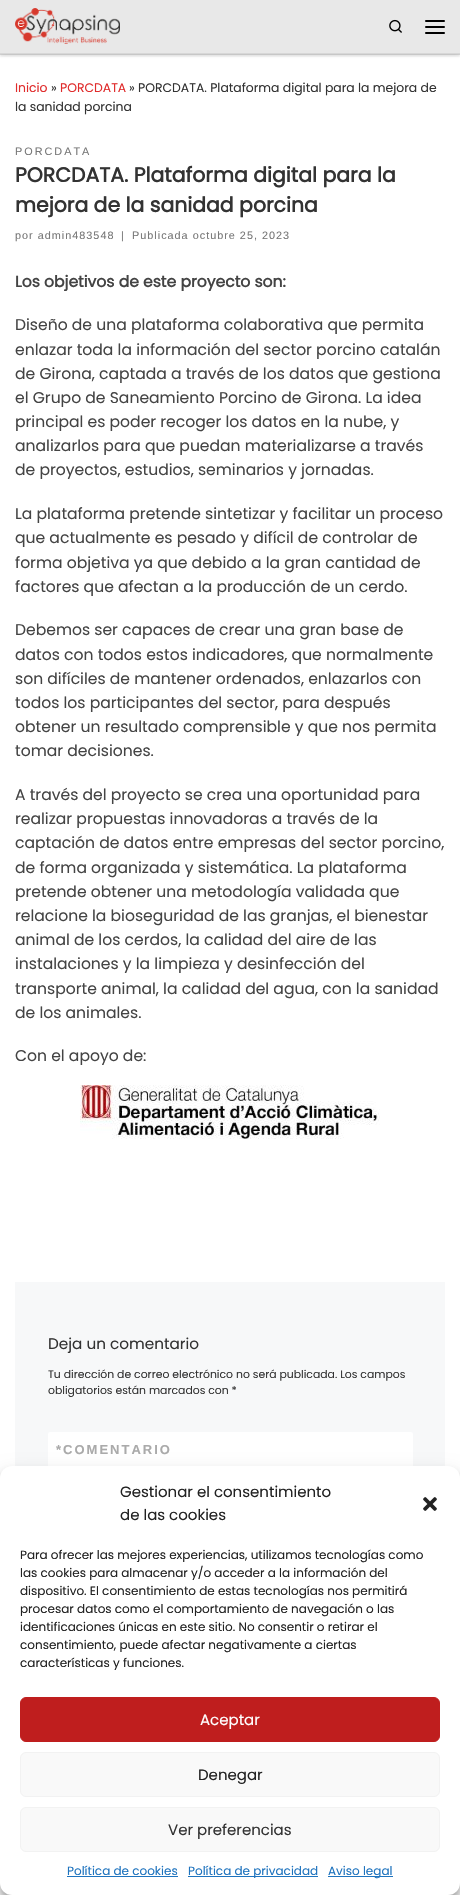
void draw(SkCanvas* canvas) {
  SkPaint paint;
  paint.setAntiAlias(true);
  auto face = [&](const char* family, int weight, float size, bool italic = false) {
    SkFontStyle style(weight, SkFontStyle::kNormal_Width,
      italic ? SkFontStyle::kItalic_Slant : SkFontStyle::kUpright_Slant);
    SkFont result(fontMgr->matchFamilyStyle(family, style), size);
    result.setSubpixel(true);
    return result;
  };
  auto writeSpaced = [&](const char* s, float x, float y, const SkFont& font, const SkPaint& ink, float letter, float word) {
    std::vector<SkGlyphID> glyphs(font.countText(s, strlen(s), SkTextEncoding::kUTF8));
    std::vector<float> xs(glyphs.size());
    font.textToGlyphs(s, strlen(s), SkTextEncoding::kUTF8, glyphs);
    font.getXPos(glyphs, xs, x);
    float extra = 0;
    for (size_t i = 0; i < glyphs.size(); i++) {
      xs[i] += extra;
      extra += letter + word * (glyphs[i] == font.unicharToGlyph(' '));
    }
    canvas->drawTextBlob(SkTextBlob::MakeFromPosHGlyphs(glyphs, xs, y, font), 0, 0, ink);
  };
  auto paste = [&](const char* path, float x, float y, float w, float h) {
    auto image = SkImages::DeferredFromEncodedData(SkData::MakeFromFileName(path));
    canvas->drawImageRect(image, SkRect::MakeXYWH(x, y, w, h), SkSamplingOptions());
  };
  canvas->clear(0xffffffff);
  paint.setColor(0x14666666);
  paint.setMaskFilter(SkMaskFilter::MakeBlur(kNormal_SkBlurStyle, 1));
  canvas->drawRect(SkRect::MakeXYWH(0, 2, 460, 55), paint);
  paint.setMaskFilter(nullptr);
  paint.setColor(0xffe8e8e8);
  canvas->drawRect(SkRect::MakeXYWH(0, 0, 460, 53), paint);
  paint.setColor(0xffdadada);
  canvas->drawRect(SkRect::MakeXYWH(0, 54, 460, 1), paint);
  canvas->save();
  canvas->clipRect(SkRect::MakeXYWH(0, 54, 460, 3));
  paint.setColor(0x33000000);
  paint.setMaskFilter(SkMaskFilter::MakeBlur(kNormal_SkBlurStyle, 2.5f));
  canvas->drawRect(SkRect::MakeXYWH(0, 0, 460, 54), paint);
  paint.setMaskFilter(nullptr);
  canvas->restore();
  paste("img/1.png", 15, 8, 105, 36);
  paste("img/2.png", 389, 19, 13, 14);
  paint.setColor(0xff000000);
  canvas->drawRoundRect(SkRect::MakeXYWH(425, 20, 20, 2), 1, 1, paint);
  canvas->drawRoundRect(SkRect::MakeXYWH(425, 26, 20, 2), 1, 1, paint);
  canvas->drawRoundRect(SkRect::MakeXYWH(425, 32, 20, 2), 1, 1, paint);
  paint.setColor(0xffd7d7d7);
  canvas->drawRect(SkRect::MakeXYWH(0, 53, 460, 1), paint);
  paste("img/3.png", 80, 1085, 300, 54);
  paint.setColor(0xfff7f8f9);
  canvas->drawRect(SkRect::MakeXYWH(15, 1282, 430, 184), paint);
  paint.setColor(0xffffffff);
  canvas->drawRoundRect(SkRect::MakeXYWH(48, 1432, 365, 116), 2, 2, paint);
  paint.setColor(0x3b000000);
  paint.setMaskFilter(SkMaskFilter::MakeBlur(kNormal_SkBlurStyle, 3));
  canvas->drawRoundRect(SkRect::MakeXYWH(0, 1472, 460, 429), 12, 12, paint);
  paint.setMaskFilter(nullptr);
  paint.setColor(0x30000000);
  paint.setMaskFilter(SkMaskFilter::MakeBlur(kNormal_SkBlurStyle, 10));
  canvas->drawRoundRect(SkRect::MakeXYWH(0, 1476, 460, 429), 12, 12, paint);
  paint.setMaskFilter(nullptr);
  paint.setColor(0xffffffff);
  canvas->drawRoundRect(SkRect::MakeXYWH(0, 1466, 460, 429), 12, 12, paint);
  paste("img/4.png", 423, 1497, 14, 14);
  paint.setColor(0xffbf1e1e);
  canvas->drawRoundRect(SkRect::MakeXYWH(20.5f, 1697.5f, 419, 44), 5.5f, 5.5f, paint);
  paint.setStroke(true);
  paint.setStrokeWidth(1);
  canvas->drawRoundRect(SkRect::MakeXYWH(20.5f, 1697.5f, 419, 44), 5.5f, 5.5f, paint);
  paint.setStroke(false);
  paint.setColor(0xfff9f9f9);
  canvas->drawRoundRect(SkRect::MakeXYWH(20.5f, 1752.5f, 419, 44), 5.5f, 5.5f, paint);
  paint.setStroke(true);
  paint.setColor(0xfff2f2f2);
  canvas->drawRoundRect(SkRect::MakeXYWH(20.5f, 1752.5f, 419, 44), 5.5f, 5.5f, paint);
  paint.setStroke(false);
  paint.setColor(0xfff9f9f9);
  canvas->drawRoundRect(SkRect::MakeXYWH(20.5f, 1807.5f, 419, 44), 5.5f, 5.5f, paint);
  paint.setStroke(true);
  paint.setColor(0xfff2f2f2);
  canvas->drawRoundRect(SkRect::MakeXYWH(20.5f, 1807.5f, 419, 44), 5.5f, 5.5f, paint);
  paint.setStroke(false);
  {
    const struct { float x, y, w, h; SkColor color; } items[] = {
      {67, 1876, 111, 1, 0xff1e73be},
      {188, 1876, 130, 1, 0xff1e73be},
      {328, 1876, 65, 1, 0xff1e73be},
    };
    for (auto [x, y, w, h, color] : items) {
      paint.setColor(color);
      canvas->drawRect(SkRect::MakeXYWH(x, y, w, h), paint);
    }
  }
  auto f0 = face("Poppins", 400, 12.4f);
  paint.setColor(0xffe02c2c);
  canvas->drawString("Inicio", 15, 92, f0, paint);
  paint.setColor(0xff333333);
  canvas->drawString("»", 51, 92, f0, paint);
  paint.setColor(0xffe02c2c);
  canvas->drawString("PORCDATA", 60, 92, f0, paint);
  paint.setColor(0xff333333);
  canvas->drawString("» PORCDATA. Plataforma digital para la mejora de", 129, 92, f0, paint);
  canvas->drawString("la sanidad porcina", 15, 111, f0, paint);
  auto f1 = face("Liberation Sans", 400, 10.85f);
  paint.setColor(0xff777777);
  writeSpaced("PORCDATA", 15, 155, f1, paint, 2, 0);
  auto f2 = face("Poppins", 700, 20.4f);
  paint.setColor(0xff333333);
  canvas->drawString("PORCDATA. Plataforma digital para la", 15, 182, f2, paint);
  canvas->drawString("mejora de la sanidad porcina", 15, 212, f2, paint);
  paint.setColor(0xff777777);
  {
    const struct { const char* s; float x, y; } items[] = {
      {"por admin483548", 15, 239},
      {"|", 121, 239},
      {"Publicada octubre 25, 2023", 132, 239},
    };
    for (auto [s, x, y] : items) {
      writeSpaced(s, x, y, f1, paint, 1, 0);
    }
  }
  auto f3 = face("Poppins", 700, 15.6f);
  paint.setColor(0xff444444);
  canvas->drawString("Los objetivos de este proyecto son:", 15, 287, f3, paint);
  auto f4 = face("Poppins", 400, 15.6f);
  {
    const struct { const char* s; float x, y; } items[] = {
      {"Diseño de una plataforma colaborativa que permita", 15, 330},
      {"enlazar toda la información del sector porcino catalán", 15, 355},
      {"de Girona, captada a través de los datos que gestiona", 15, 379},
      {"el Grupo de Saneamiento Porcino de Girona. La idea", 15, 403},
      {"principal es poder recoger los datos en la nube, y", 15, 427},
      {"analizarlos para que puedan materializarse a través", 15, 451},
      {"de proyectos, estudios, seminarios y jornadas.", 15, 475},
      {"La plataforma pretende sintetizar y facilitar un proceso", 15, 519},
      {"que actualmente es pesado y difícil de controlar de", 15, 543},
      {"forma objetiva ya que debido a la gran cantidad de", 15, 568},
      {"factores que afectan a la producción de un cerdo.", 15, 592},
      {"Debemos ser capaces de crear una gran base de", 15, 635},
      {"datos con todos estos indicadores, que normalmente", 15, 660},
      {"son difíciles de mantener ordenados, enlazarlos con", 15, 684},
      {"todos los participantes del sector, para después", 15, 708},
      {"obtener un resultado comprensible y que nos permita", 15, 732},
      {"tomar decisiones.", 15, 756},
      {"A través del proyecto se crea una oportunidad para", 15, 800},
      {"realizar propuestas innovadoras a través de la", 15, 824},
      {"captación de datos entre empresas del sector porcino,", 15, 848},
      {"de forma organizada y sistemática. La plataforma", 15, 873},
      {"pretende obtener una metodología validada que", 15, 897},
      {"relacione la bioseguridad de las granjas, el bienestar", 15, 921},
      {"animal de los cerdos, la calidad del aire de las", 15, 945},
      {"instalaciones y la limpieza y desinfección del", 15, 969},
      {"transporte animal, la calidad del agua, con la sanidad", 15, 994},
      {"de los animales.", 15, 1018},
      {"Con el apoyo de:", 15, 1061},
    };
    for (auto [s, x, y] : items) {
      canvas->drawString(s, x, y, f4, paint);
    }
  }
  auto f5 = face("Poppins", 400, 15.25f);
  paint.setColor(0xff333333);
  canvas->drawString("Deja un comentario", 48, 1349, f5, paint);
  auto f6 = face("Poppins", 400, 10.85f);
  canvas->drawString("Tu dirección de correo electrónico no será publicada. Los campos", 48, 1378, f6, paint);
  canvas->drawString("obligatorios están marcados con *", 48, 1394, f6, paint);
  auto f7 = face("Liberation Sans", 700, 13);
  paint.setColor(0xffaaaaaa);
  writeSpaced("*COMENTARIO", 56, 1454, f7, paint, 2, 0);
  auto f8 = face("Poppins", 400, 15);
  paint.setColor(0xff222222);
  canvas->drawString("Gestionar el consentimiento", 120, 1497, f8, paint);
  canvas->drawString("de las cookies", 120, 1520, f8, paint);
  auto f9 = face("Poppins", 400, 12);
  {
    const struct { const char* s; float x, y; } items[] = {
      {"Para ofrecer las mejores experiencias, utilizamos tecnologías como", 20, 1559},
      {"las cookies para almacenar y/o acceder a la información del", 20, 1577},
      {"dispositivo. El consentimiento de estas tecnologías nos permitirá", 20, 1595},
      {"procesar datos como el comportamiento de navegación o las", 20, 1613},
      {"identificaciones únicas en este sitio. No consentir o retirar el", 20, 1631},
      {"consentimiento, puede afectar negativamente a ciertas", 20, 1649},
      {"características y funciones.", 20, 1667},
    };
    for (auto [s, x, y] : items) {
      canvas->drawString(s, x, y, f9, paint);
    }
  }
  paint.setColor(0xffffffff);
  canvas->drawString("Aceptar", 200, 1725, f8, paint);
  paint.setColor(0xff222222);
  canvas->drawString("Denegar", 198, 1780, f8, paint);
  paint.setColor(0xff333333);
  canvas->drawString("Ver preferencias", 168, 1835, f8, paint);
  paint.setColor(0xff1e73be);
  {
    const struct { const char* s; float x, y; } items[] = {
      {"Política de cookies", 67, 1875},
      {"Política de privacidad", 188, 1875},
      {"Aviso legal", 328, 1875},
    };
    for (auto [s, x, y] : items) {
      canvas->drawString(s, x, y, f9, paint);
    }
  }
}
